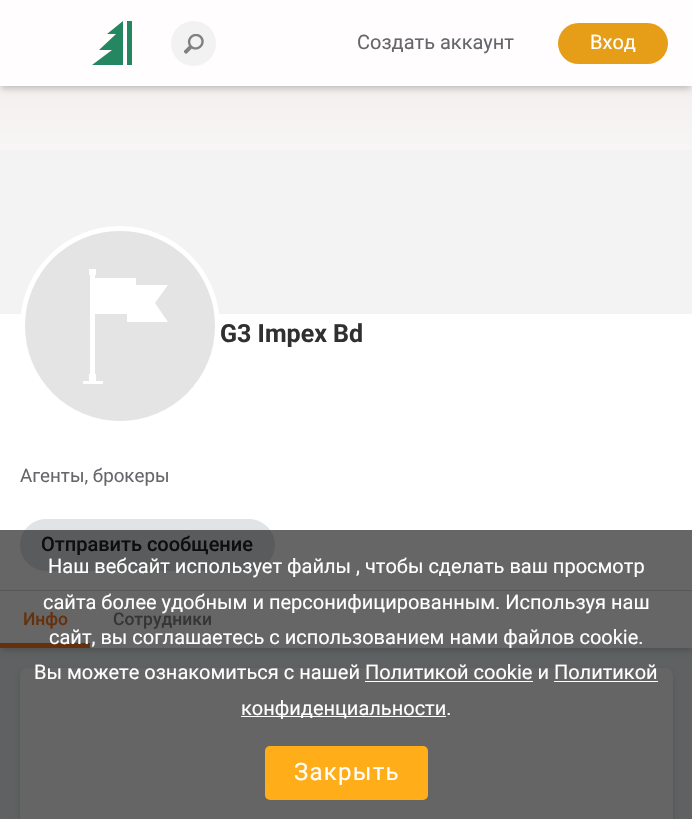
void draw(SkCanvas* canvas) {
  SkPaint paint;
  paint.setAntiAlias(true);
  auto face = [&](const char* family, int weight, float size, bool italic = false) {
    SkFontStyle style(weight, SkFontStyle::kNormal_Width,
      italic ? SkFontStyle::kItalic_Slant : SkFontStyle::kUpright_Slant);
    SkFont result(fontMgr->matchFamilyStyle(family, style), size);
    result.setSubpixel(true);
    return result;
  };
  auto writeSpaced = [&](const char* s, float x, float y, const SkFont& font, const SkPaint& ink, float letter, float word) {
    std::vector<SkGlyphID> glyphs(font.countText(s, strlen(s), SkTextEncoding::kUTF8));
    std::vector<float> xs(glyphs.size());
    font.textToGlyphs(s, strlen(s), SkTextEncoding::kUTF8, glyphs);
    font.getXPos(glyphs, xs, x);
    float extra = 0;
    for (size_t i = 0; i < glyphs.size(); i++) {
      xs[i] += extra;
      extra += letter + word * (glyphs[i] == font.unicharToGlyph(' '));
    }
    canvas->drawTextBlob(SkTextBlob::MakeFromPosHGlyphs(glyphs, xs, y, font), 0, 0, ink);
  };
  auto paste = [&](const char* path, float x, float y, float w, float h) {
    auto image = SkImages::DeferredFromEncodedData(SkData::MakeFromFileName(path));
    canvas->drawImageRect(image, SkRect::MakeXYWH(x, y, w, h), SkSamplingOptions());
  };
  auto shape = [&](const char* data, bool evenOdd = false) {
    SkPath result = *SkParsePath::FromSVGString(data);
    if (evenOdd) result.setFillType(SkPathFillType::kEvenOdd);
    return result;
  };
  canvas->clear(0xffecf3f4);
  paint.setColor(0x33000000);
  paint.setMaskFilter(SkMaskFilter::MakeBlur(kNormal_SkBlurStyle, 3));
  canvas->drawRect(SkRect::MakeXYWH(1, 91, 690, 559), paint);
  paint.setMaskFilter(nullptr);
  {
    const SkColor colors[] = {0xffffffff, 0xffe4dbdb};
    const float stops[] = {0.47f, 1};
    const SkPoint ends[] = {{346, 648}, {346, -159}};
    paint.setShader(SkGradientShader::MakeLinear(ends, colors, stops, 2, SkTileMode::kClamp));
    paint.setAlpha(255);
  }
  canvas->drawRect(SkRect::MakeXYWH(0, 86, 692, 562), paint);
  paint.setShader(nullptr);
  paint.setColor(0x33000000);
  paint.setMaskFilter(SkMaskFilter::MakeBlur(kNormal_SkBlurStyle, 3));
  canvas->drawRect(SkRect::MakeXYWH(1, 5, 690, 84), paint);
  paint.setMaskFilter(nullptr);
  paint.setColor(0xfffffdfd);
  canvas->drawRect(SkRect::MakeXYWH(0, 0, 692, 86), paint);
  paint.setColor(0xff248761);
  canvas->drawPath(shape("M123 21V65H92L112 50H99L116 34H107Z", true), paint);
  canvas->drawRect(SkRect::MakeXYWH(127, 21, 5, 44), paint);
  paint.setColor(0xfff3f2f2);
  canvas->drawCircle(193.5f, 43.5f, 22.5f, paint);
  paste("img/1.png", 184, 34, 20, 20);
  paint.setColor(0xffe69e19);
  canvas->drawRoundRect(SkRect::MakeXYWH(558, 23, 110, 41), 20.5f, 20.5f, paint);
  paint.setColor(0xfff3f3f3);
  canvas->drawRect(SkRect::MakeXYWH(0, 150, 692, 164), paint);
  paint.setStroke(true);
  paint.setStrokeWidth(5);
  paint.setColor(0xffffffff);
  canvas->drawCircle(120, 326, 97.5f, paint);
  paint.setStroke(false);
  paint.setColor(0xffe4e4e4);
  canvas->drawCircle(120, 326, 95, paint);
  paint.setColor(0xffffffff);
  canvas->drawRect(SkRect::MakeXYWH(90, 275, 5, 99), paint);
  canvas->drawPath(shape("M89 269H96V275H89ZM89 374H96V381H89Z"), paint);
  canvas->drawRect(SkRect::MakeXYWH(83, 381, 20, 3), paint);
  canvas->drawPath(shape("M168 322H127V285H168L155 303Z"), paint);
  canvas->drawRect(SkRect::MakeXYWH(95, 278, 41, 36), paint);
  paint.setColor(0xffe1e4e6);
  canvas->drawRoundRect(SkRect::MakeXYWH(20.5f, 519.5f, 254, 51), 25.5f, 25.5f, paint);
  paint.setStroke(true);
  paint.setStrokeWidth(1);
  canvas->drawRoundRect(SkRect::MakeXYWH(20.5f, 519.5f, 254, 51), 25.5f, 25.5f, paint);
  paint.setStroke(false);
  paint.setColor(0xffdadada);
  canvas->drawRect(SkRect::MakeXYWH(0, 590, 692, 1), paint);
  paint.setColor(0xffff771c);
  canvas->drawRect(SkRect::MakeXYWH(0, 643, 90, 5), paint);
  paint.setColor(0x1f000000);
  paint.setMaskFilter(SkMaskFilter::MakeBlur(kNormal_SkBlurStyle, 2.5f));
  canvas->drawRoundRect(SkRect::MakeXYWH(20, 671, 653, 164), 8, 8, paint);
  paint.setMaskFilter(nullptr);
  paint.setColor(0xfffffcfc);
  canvas->drawRoundRect(SkRect::MakeXYWH(20, 668, 653, 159), 8, 8, paint);
  auto f0 = face("Roboto", 400, 20);
  paint.setColor(0xff65676b);
  canvas->drawString("Создать аккаунт", 357, 49, f0, paint);
  paint.setColor(0xffffffff);
  canvas->drawString("Вход", 590, 49, f0, paint);
  auto f1 = face("Roboto", 700, 25);
  paint.setColor(0xff303030);
  canvas->drawString("G3 Impex Bd", 220, 342, f1, paint);
  auto f2 = face("Roboto", 400, 18.75f);
  paint.setColor(0xff65676b);
  canvas->drawString("Агенты, брокеры", 20, 482, f2, paint);
  auto f3 = face("Roboto", 500, 20);
  paint.setColor(0xff202124);
  canvas->drawString("Отправить сообщение", 41, 551, f3, paint);
  auto f4 = face("Roboto", 500, 17.5f);
  paint.setColor(0xffff771c);
  canvas->drawString("Инфо", 23, 625, f4, paint);
  paint.setColor(0xff858588);
  canvas->drawString("Сотрудники", 113, 625, f4, paint);
  paint.setColor(0x99000000);
  canvas->drawRect(SkRect::MakeXYWH(0, 530, 692, 289), paint);
  paint.setColor(0xffffffff);
  {
    const struct { const char* s; float x, y; } items[] = {
      {"Наш вебсайт использует файлы , чтобы сделать ваш просмотр", 48, 573},
      {"сайта более удобным и персонифицированным. Используя наш", 43, 609},
      {"сайт, вы соглашаетесь с использованием нами файлов cookie.", 49, 644},
      {"Вы можете ознакомиться с нашей Политикой сookie и Политикой", 34, 679},
    };
    for (auto [s, x, y] : items) {
      canvas->drawString(s, x, y, f0, paint);
    }
  }
  {
    const struct { float x, y, w, h; SkColor color; } items[] = {
      {365, 681, 168, 1, 0xffffffff},
      {554, 681, 104, 1, 0xffffffff},
      {241, 716, 205, 1, 0xffffffff},
    };
    for (auto [x, y, w, h, color] : items) {
      paint.setColor(color);
      canvas->drawRect(SkRect::MakeXYWH(x, y, w, h), paint);
    }
  }
  canvas->drawString("конфиденциальности.", 241, 715, f0, paint);
  paint.setColor(0xffffae19);
  canvas->drawRoundRect(SkRect::MakeXYWH(265, 746, 163, 54), 5, 5, paint);
  auto f5 = face("Roboto", 400, 24);
  paint.setColor(0xffffffff);
  writeSpaced("Закрыть", 294, 780, f5, paint, 1.25f, 0);
}
